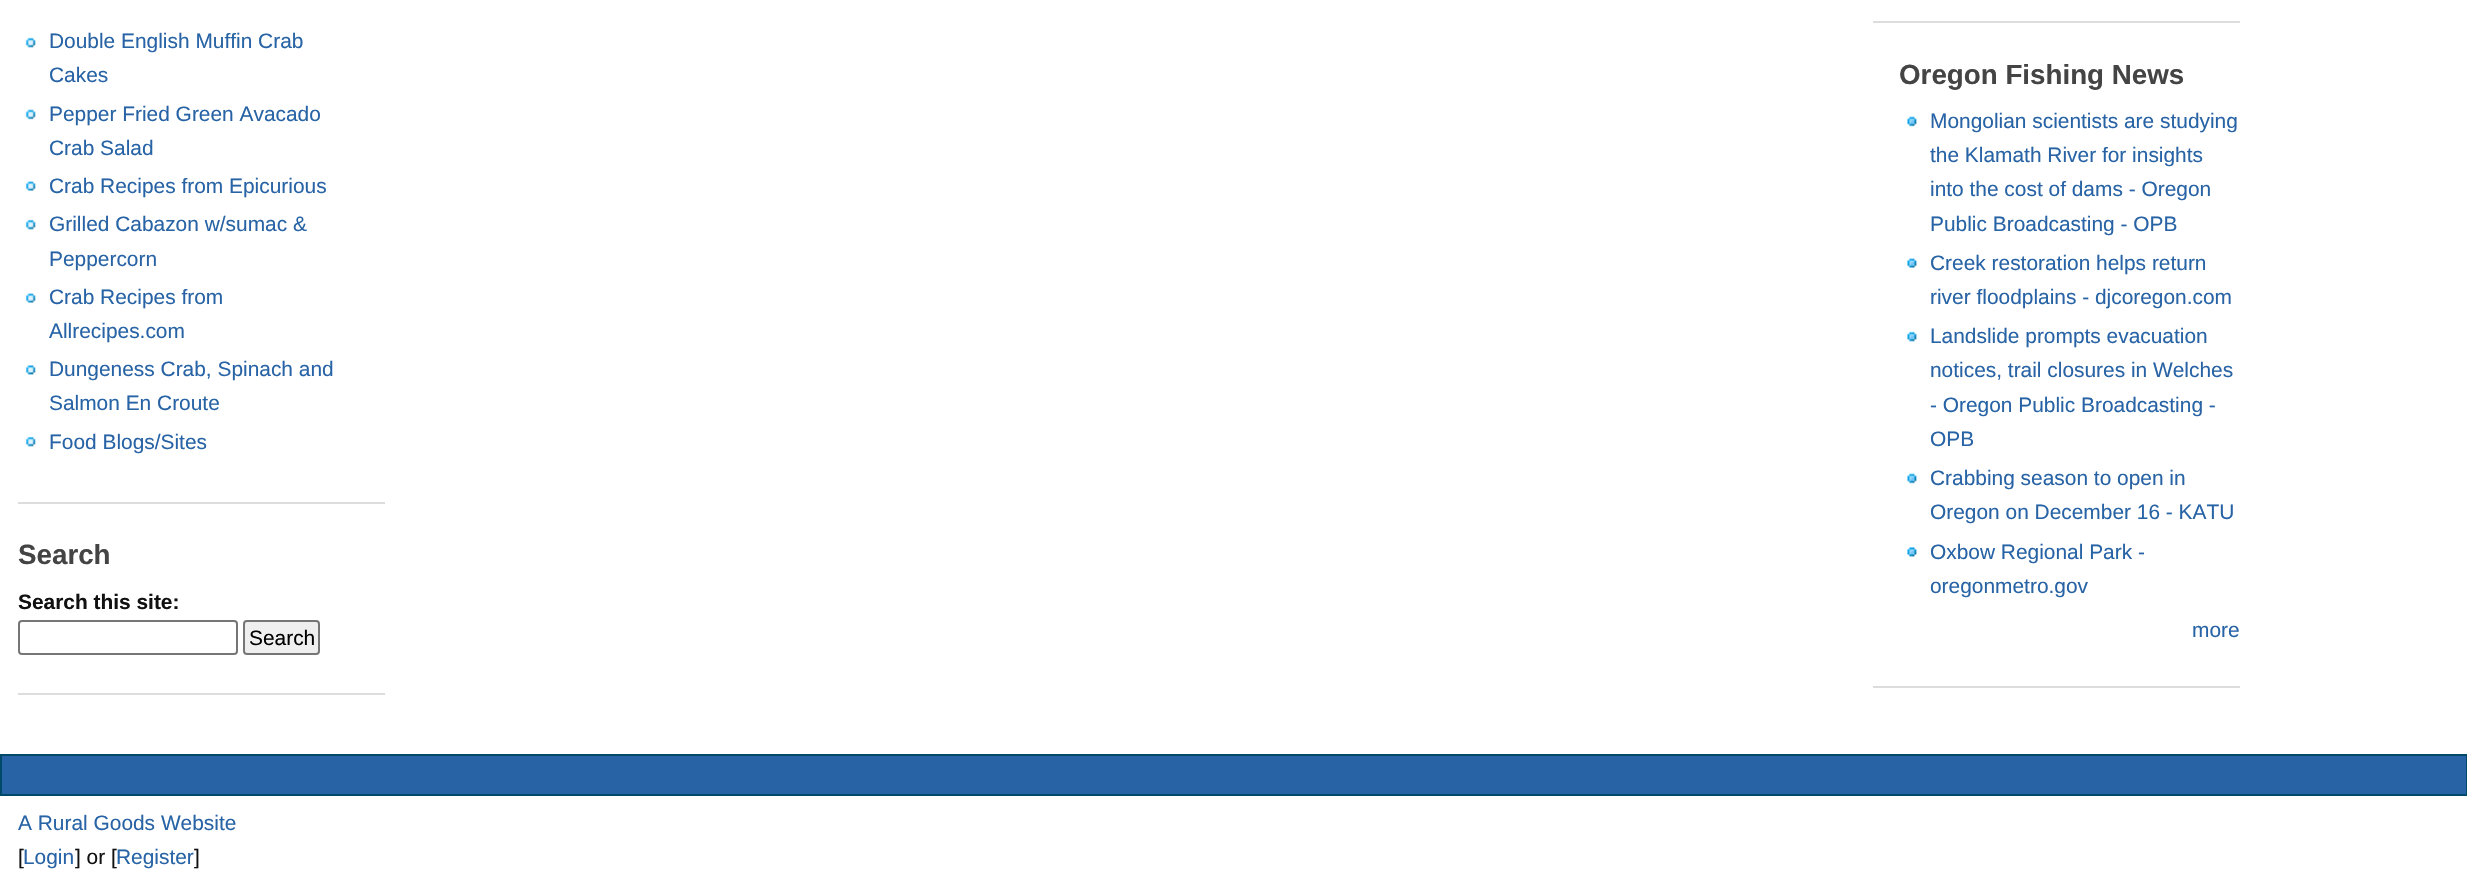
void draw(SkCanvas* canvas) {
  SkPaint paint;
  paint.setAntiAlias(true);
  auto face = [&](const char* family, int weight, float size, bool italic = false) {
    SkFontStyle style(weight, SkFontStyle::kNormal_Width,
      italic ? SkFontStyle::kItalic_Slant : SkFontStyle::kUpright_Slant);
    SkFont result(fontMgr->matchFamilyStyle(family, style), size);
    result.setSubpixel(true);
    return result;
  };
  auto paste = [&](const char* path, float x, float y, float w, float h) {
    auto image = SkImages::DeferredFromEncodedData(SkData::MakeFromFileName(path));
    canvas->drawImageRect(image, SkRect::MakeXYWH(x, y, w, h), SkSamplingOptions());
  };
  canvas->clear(0xffffffff);
  paint.setColor(0xffdddddd);
  canvas->drawRect(SkRect::MakeXYWH(18, 502, 367, 2), paint);
  paste("img/1.png", 25, 37, 11, 11);
  paste("img/2.png", 25, 109, 11, 11);
  paste("img/3.png", 25, 181, 11, 10);
  paste("img/1.png", 25, 219, 11, 11);
  paste("img/3.png", 25, 293, 11, 10);
  paste("img/4.png", 25, 365, 11, 10);
  paste("img/1.png", 25, 436, 11, 11);
  canvas->drawRect(SkRect::MakeXYWH(18, 693, 367, 2), paint);
  paint.setStroke(true);
  paint.setStrokeWidth(2);
  paint.setColor(0xff767676);
  canvas->drawRoundRect(SkRect::MakeXYWH(19, 621, 218, 33), 3, 3, paint);
  paint.setStroke(false);
  paint.setColor(0xffefefef);
  canvas->drawRoundRect(SkRect::MakeXYWH(244, 621, 75, 33), 3, 3, paint);
  paint.setStroke(true);
  paint.setColor(0xff767676);
  canvas->drawRoundRect(SkRect::MakeXYWH(244, 621, 75, 33), 3, 3, paint);
  paint.setStroke(false);
  paint.setColor(0xffdddddd);
  canvas->drawRect(SkRect::MakeXYWH(1873, 21, 367, 2), paint);
  canvas->drawRect(SkRect::MakeXYWH(1873, 686, 367, 2), paint);
  paste("img/5.png", 1907, 116, 10, 11);
  paste("img/6.png", 1907, 258, 10, 10);
  paste("img/7.png", 1907, 331, 10, 11);
  paste("img/5.png", 1907, 473, 10, 11);
  paste("img/8.png", 1907, 547, 10, 10);
  paint.setColor(0xff2763a5);
  canvas->drawRect(SkRect::MakeXYWH(1, 755, 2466, 40), paint);
  paint.setStroke(true);
  paint.setColor(0xff004969);
  canvas->drawRect(SkRect::MakeXYWH(1, 755, 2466, 40), paint);
  auto f0 = face("Liberation Sans", 400, 20.9f);
  paint.setStroke(false);
  paint.setColor(0xff2763a5);
  {
    const struct { const char* s; float x, y; } items[] = {
      {"Double English Muffin Crab", 49, 48},
      {"Cakes", 49, 82},
      {"Pepper Fried Green Avacado", 49, 121},
      {"Crab Salad", 49, 155},
      {"Crab Recipes from Epicurious", 49, 193},
      {"Grilled Cabazon w/sumac &", 49, 231},
      {"Peppercorn", 49, 266},
      {"Crab Recipes from", 49, 304},
      {"Allrecipes.com", 49, 338},
      {"Dungeness Crab, Spinach and", 49, 376},
      {"Salmon En Croute", 49, 410},
      {"Food Blogs/Sites", 49, 449},
    };
    for (auto [s, x, y] : items) {
      canvas->drawString(s, x, y, f0, paint);
    }
  }
  auto f1 = face("Liberation Sans", 700, 27.75f);
  paint.setColor(0xff444444);
  canvas->drawString("Search", 18, 564, f1, paint);
  auto f2 = face("Liberation Sans", 700, 20.9f);
  paint.setColor(0xff111111);
  canvas->drawString("Search this site:", 18, 609, f2, paint);
  paint.setColor(0xff000000);
  canvas->drawString("Search", 249, 645, f0, paint);
  paint.setColor(0xff444444);
  canvas->drawString("Oregon Fishing News", 1899, 84, f1, paint);
  paint.setColor(0xff2763a5);
  {
    const struct { const char* s; float x, y; } items[] = {
      {"Mongolian scientists are studying", 1930, 128},
      {"the Klamath River for insights", 1930, 162},
      {"into the cost of dams - Oregon", 1930, 196},
      {"Public Broadcasting - OPB", 1930, 231},
      {"Creek restoration helps return", 1930, 270},
      {"river floodplains - djcoregon.com", 1930, 304},
      {"Landslide prompts evacuation", 1930, 343},
      {"notices, trail closures in Welches", 1930, 377},
      {"- Oregon Public Broadcasting -", 1930, 412},
      {"OPB", 1930, 446},
      {"Crabbing season to open in", 1930, 485},
      {"Oregon on December 16 - KATU", 1930, 519},
      {"Oxbow Regional Park -", 1930, 559},
      {"oregonmetro.gov", 1930, 593},
      {"more", 2192, 637},
      {"A Rural Goods Website", 18, 830},
    };
    for (auto [s, x, y] : items) {
      canvas->drawString(s, x, y, f0, paint);
    }
  }
  paint.setColor(0xff111111);
  canvas->drawString("[", 18, 864, f0, paint);
  paint.setColor(0xff2763a5);
  canvas->drawString("Login", 23, 864, f0, paint);
  paint.setColor(0xff111111);
  canvas->drawString("] or [", 75, 864, f0, paint);
  paint.setColor(0xff2763a5);
  canvas->drawString("Register", 116, 864, f0, paint);
  paint.setColor(0xff111111);
  canvas->drawString("]", 194, 864, f0, paint);
}
